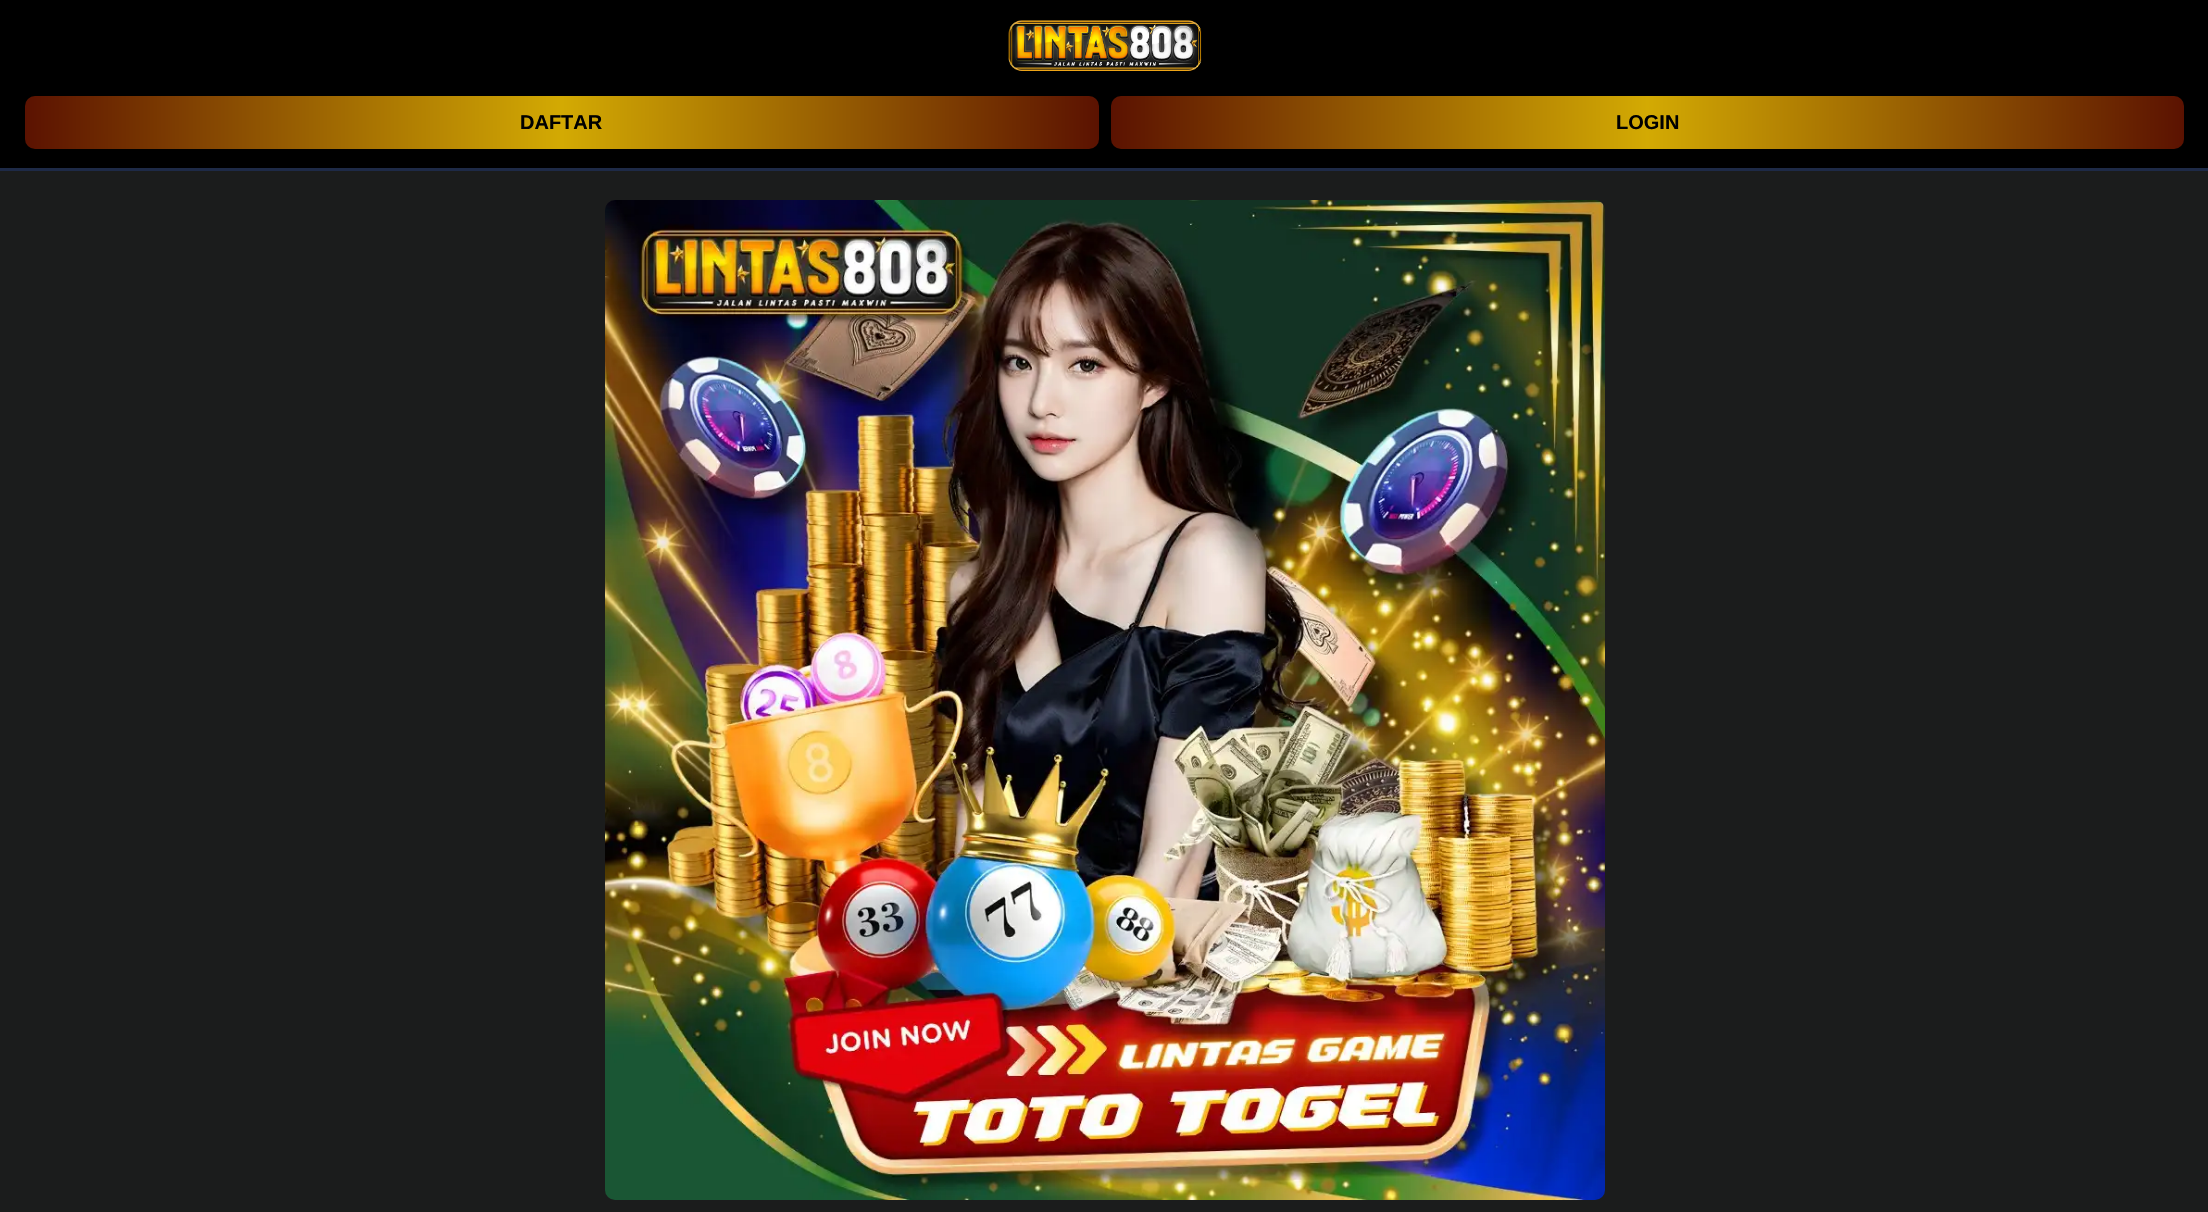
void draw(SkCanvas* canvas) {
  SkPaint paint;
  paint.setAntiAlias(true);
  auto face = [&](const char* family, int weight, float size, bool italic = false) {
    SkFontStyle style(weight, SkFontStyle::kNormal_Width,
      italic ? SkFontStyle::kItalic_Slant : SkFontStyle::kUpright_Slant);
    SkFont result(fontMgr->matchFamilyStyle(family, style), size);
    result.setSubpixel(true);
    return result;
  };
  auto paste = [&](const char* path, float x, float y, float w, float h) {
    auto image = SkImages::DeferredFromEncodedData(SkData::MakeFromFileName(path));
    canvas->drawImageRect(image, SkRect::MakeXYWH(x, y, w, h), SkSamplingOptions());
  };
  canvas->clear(0xff1b1c1c);
  paint.setColor(0xff000000);
  canvas->drawRect(SkRect::MakeXYWH(0, 0, 2208, 168), paint);
  paint.setColor(0xff1e2a47);
  canvas->drawRect(SkRect::MakeXYWH(0, 168, 2208, 3), paint);
  paste("img/1.png", 1008, 20, 194, 51);
  {
    const SkColor colors[] = {0xff5b1201, 0xffd3aa03, 0xff5b1201};
    const float stops[] = {0, 0.5f, 1};
    const SkPoint ends[] = {{25, 123}, {1099, 122}};
    paint.setShader(SkGradientShader::MakeLinear(ends, colors, stops, 3, SkTileMode::kClamp));
    paint.setAlpha(255);
  }
  canvas->drawRoundRect(SkRect::MakeXYWH(25, 96, 1074, 53), 10, 10, paint);
  {
    const SkColor colors[] = {0xff5b1201, 0xffd3aa03, 0xff5b1201};
    const float stops[] = {0, 0.5f, 1};
    const SkPoint ends[] = {{1111, 123}, {2184, 122}};
    paint.setShader(SkGradientShader::MakeLinear(ends, colors, stops, 3, SkTileMode::kClamp));
    paint.setAlpha(255);
  }
  canvas->drawRoundRect(SkRect::MakeXYWH(1111, 96, 1073, 53), 10, 10, paint);
  paste("img/2.png", 605, 200, 1000, 1000);
  auto f0 = face("Liberation Sans", 700, 20);
  paint.setShader(nullptr);
  paint.setColor(0xff000000);
  canvas->drawString("DAFTAR", 520, 129, f0, paint);
  canvas->drawString("LOGIN", 1616, 129, f0, paint);
}
